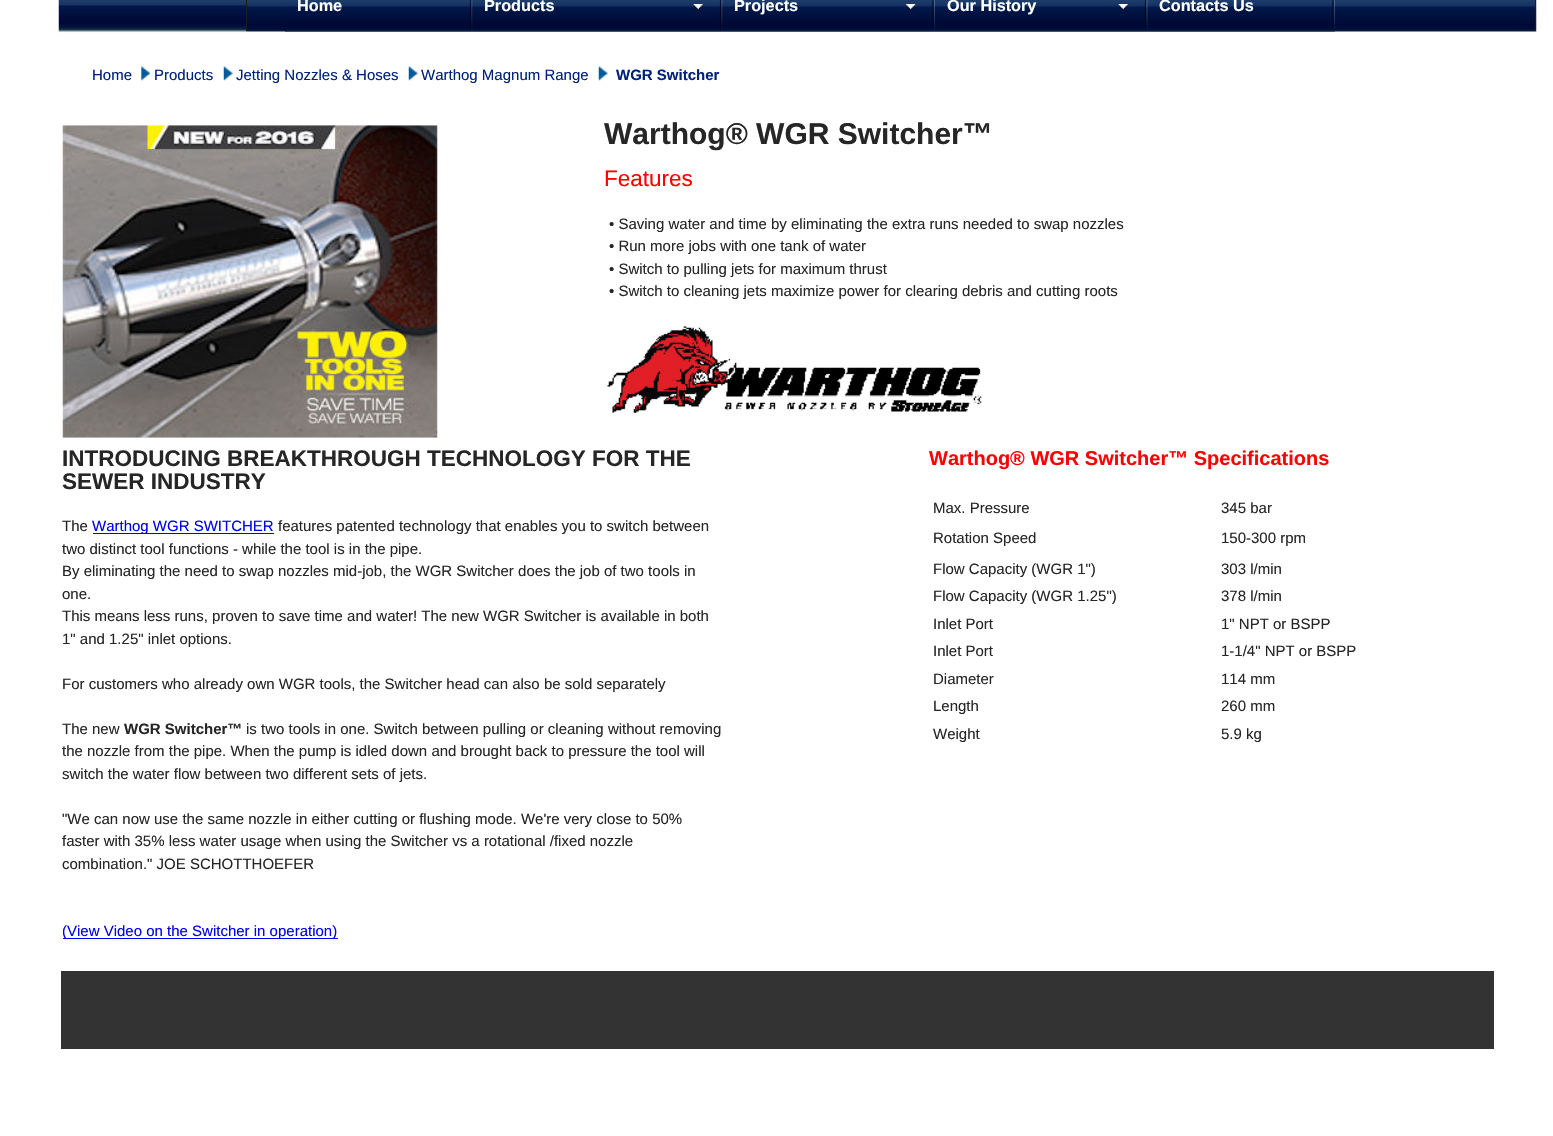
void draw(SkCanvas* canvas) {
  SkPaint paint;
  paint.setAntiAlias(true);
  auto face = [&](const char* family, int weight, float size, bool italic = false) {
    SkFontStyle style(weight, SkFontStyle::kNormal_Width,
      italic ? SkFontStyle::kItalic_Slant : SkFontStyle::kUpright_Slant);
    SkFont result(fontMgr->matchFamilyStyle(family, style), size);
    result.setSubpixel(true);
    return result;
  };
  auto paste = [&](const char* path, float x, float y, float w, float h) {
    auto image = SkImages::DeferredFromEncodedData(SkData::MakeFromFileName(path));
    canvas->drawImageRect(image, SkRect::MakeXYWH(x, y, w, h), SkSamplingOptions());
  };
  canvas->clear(0xffffffff);
  paste("img/1.png", 58, 0, 189, 33);
  paste("img/2.png", 246, 0, 1291, 32);
  paint.setColor(0xff1b1b1b);
  canvas->drawRect(SkRect::MakeXYWH(1535, 0, 1, 31), paint);
  canvas->drawRect(SkRect::MakeXYWH(246, 0, 1, 31), paint);
  paste("img/3.png", 285, 0, 188, 32);
  paste("img/4.png", 472, 0, 251, 32);
  paste("img/5.png", 693, 4, 11, 7);
  paste("img/6.png", 722, 0, 213, 32);
  paste("img/7.png", 906, 4, 10, 7);
  paste("img/9.png", 1147, 0, 188, 32);
  paste("img/8.png", 935, 0, 213, 32);
  paste("img/5.png", 1118, 4, 11, 7);
  paste("img/10.png", 141, 66, 9, 15);
  paste("img/11.png", 223, 66, 10, 15);
  paste("img/12.png", 408, 66, 10, 15);
  paste("img/11.png", 598, 66, 10, 15);
  paste("img/13.png", 62, 125, 376, 313);
  paste("img/14.png", 607, 326, 375, 87);
  {
    const struct { float x, y, w, h; SkColor color; } items[] = {
      {93, 533, 181, 1, 0xff0000ee},
      {63, 938, 275, 1, 0xff0000ee},
      {61, 971, 1433, 78, 0xff333333},
    };
    for (auto [x, y, w, h, color] : items) {
      paint.setColor(color);
      canvas->drawRect(SkRect::MakeXYWH(x, y, w, h), paint);
    }
  }
  auto f0 = face("Liberation Sans", 700, 16.25f);
  paint.setColor(0xffffffff);
  {
    const struct { const char* s; float x, y; } items[] = {
      {"Home", 297, 11},
      {"Products", 484, 11},
      {"Projects", 734, 11},
      {"Our History", 947, 11},
      {"Contacts Us", 1159, 11},
    };
    for (auto [s, x, y] : items) {
      canvas->drawString(s, x, y, f0, paint);
    }
  }
  auto f1 = face("Liberation Sans", 400, 15);
  paint.setColor(0xff00217a);
  {
    const struct { const char* s; float x, y; } items[] = {
      {"Home", 92, 80},
      {"Products", 154, 80},
      {"Jetting Nozzles & Hoses", 236, 80},
      {"Warthog Magnum Range", 421, 80},
    };
    for (auto [s, x, y] : items) {
      canvas->drawString(s, x, y, f1, paint);
    }
  }
  auto f2 = face("Liberation Sans", 700, 15);
  canvas->drawString("WGR Switcher", 616, 80, f2, paint);
  auto f3 = face("Liberation Sans", 700, 30);
  paint.setColor(0xff262626);
  canvas->drawString("Warthog® WGR Switcher™", 604, 144, f3, paint);
  auto f4 = face("Liberation Sans", 400, 22.5f);
  paint.setColor(0xffff0000);
  canvas->drawString("Features", 604, 186, f4, paint);
  paint.setColor(0xff262626);
  {
    const struct { const char* s; float x, y; } items[] = {
      {"• Saving water and time by eliminating the extra runs needed to swap nozzles", 609, 229},
      {"• Run more jobs with one tank of water", 609, 251},
      {"• Switch to pulling jets for maximum thrust", 609, 274},
      {"• Switch to cleaning jets maximize power for clearing debris and cutting roots", 609, 296},
    };
    for (auto [s, x, y] : items) {
      canvas->drawString(s, x, y, f1, paint);
    }
  }
  auto f5 = face("Liberation Sans", 700, 22.5f);
  canvas->drawString("INTRODUCING BREAKTHROUGH TECHNOLOGY FOR THE", 62, 466, f5, paint);
  canvas->drawString("SEWER INDUSTRY", 62, 489, f5, paint);
  canvas->drawString("The", 62, 531, f1, paint);
  paint.setColor(0xff0000ee);
  canvas->drawString("Warthog WGR SWITCHER", 92, 531, f1, paint);
  paint.setColor(0xff262626);
  {
    const struct { const char* s; float x, y; } items[] = {
      {"features patented technology that enables you to switch between", 278, 531},
      {"two distinct tool functions - while the tool is in the pipe.", 62, 554},
      {"By eliminating the need to swap nozzles mid-job, the WGR Switcher does the job of two tools in", 62, 576},
      {"one.", 62, 599},
      {"This means less runs, proven to save time and water! The new WGR Switcher is available in both", 62, 621},
      {"1\" and 1.25\" inlet options.", 62, 644},
      {"For customers who already own WGR tools, the Switcher head can also be sold separately", 62, 689},
      {"The new", 62, 734},
    };
    for (auto [s, x, y] : items) {
      canvas->drawString(s, x, y, f1, paint);
    }
  }
  canvas->drawString("WGR Switcher™", 124, 734, f2, paint);
  {
    const struct { const char* s; float x, y; } items[] = {
      {"is two tools in one. Switch between pulling or cleaning without removing", 246, 734},
      {"the nozzle from the pipe. When the pump is idled down and brought back to pressure the tool will", 62, 756},
      {"switch the water flow between two different sets of jets.", 62, 779},
      {"\"We can now use the same nozzle in either cutting or flushing mode. We're very close to 50%", 62, 824},
      {"faster with 35% less water usage when using the Switcher vs a rotational /fixed nozzle", 62, 846},
      {"combination.\" JOE SCHOTTHOEFER", 62, 869},
    };
    for (auto [s, x, y] : items) {
      canvas->drawString(s, x, y, f1, paint);
    }
  }
  paint.setColor(0xff0000ee);
  canvas->drawString("(View Video on the Switcher in operation)", 62, 936, f1, paint);
  auto f6 = face("Liberation Sans", 700, 20);
  paint.setColor(0xffff0000);
  canvas->drawString("Warthog® WGR Switcher™ Specifications", 929, 465, f6, paint);
  paint.setColor(0xff262626);
  {
    const struct { const char* s; float x, y; } items[] = {
      {"Max. Pressure", 933, 513},
      {"345 bar", 1221, 513},
      {"Rotation Speed", 933, 543},
      {"150-300 rpm", 1221, 543},
      {"Flow Capacity (WGR 1\")", 933, 574},
      {"303 l/min", 1221, 574},
      {"Flow Capacity (WGR 1.25\")", 933, 601},
      {"378 l/min", 1221, 601},
      {"Inlet Port", 933, 629},
      {"1\" NPT or BSPP", 1221, 629},
      {"Inlet Port", 933, 656},
      {"1-1/4\" NPT or BSPP", 1221, 656},
      {"Diameter", 933, 684},
      {"114 mm", 1221, 684},
      {"Length", 933, 711},
      {"260 mm", 1221, 711},
      {"Weight", 933, 739},
      {"5.9 kg", 1221, 739},
    };
    for (auto [s, x, y] : items) {
      canvas->drawString(s, x, y, f1, paint);
    }
  }
}
